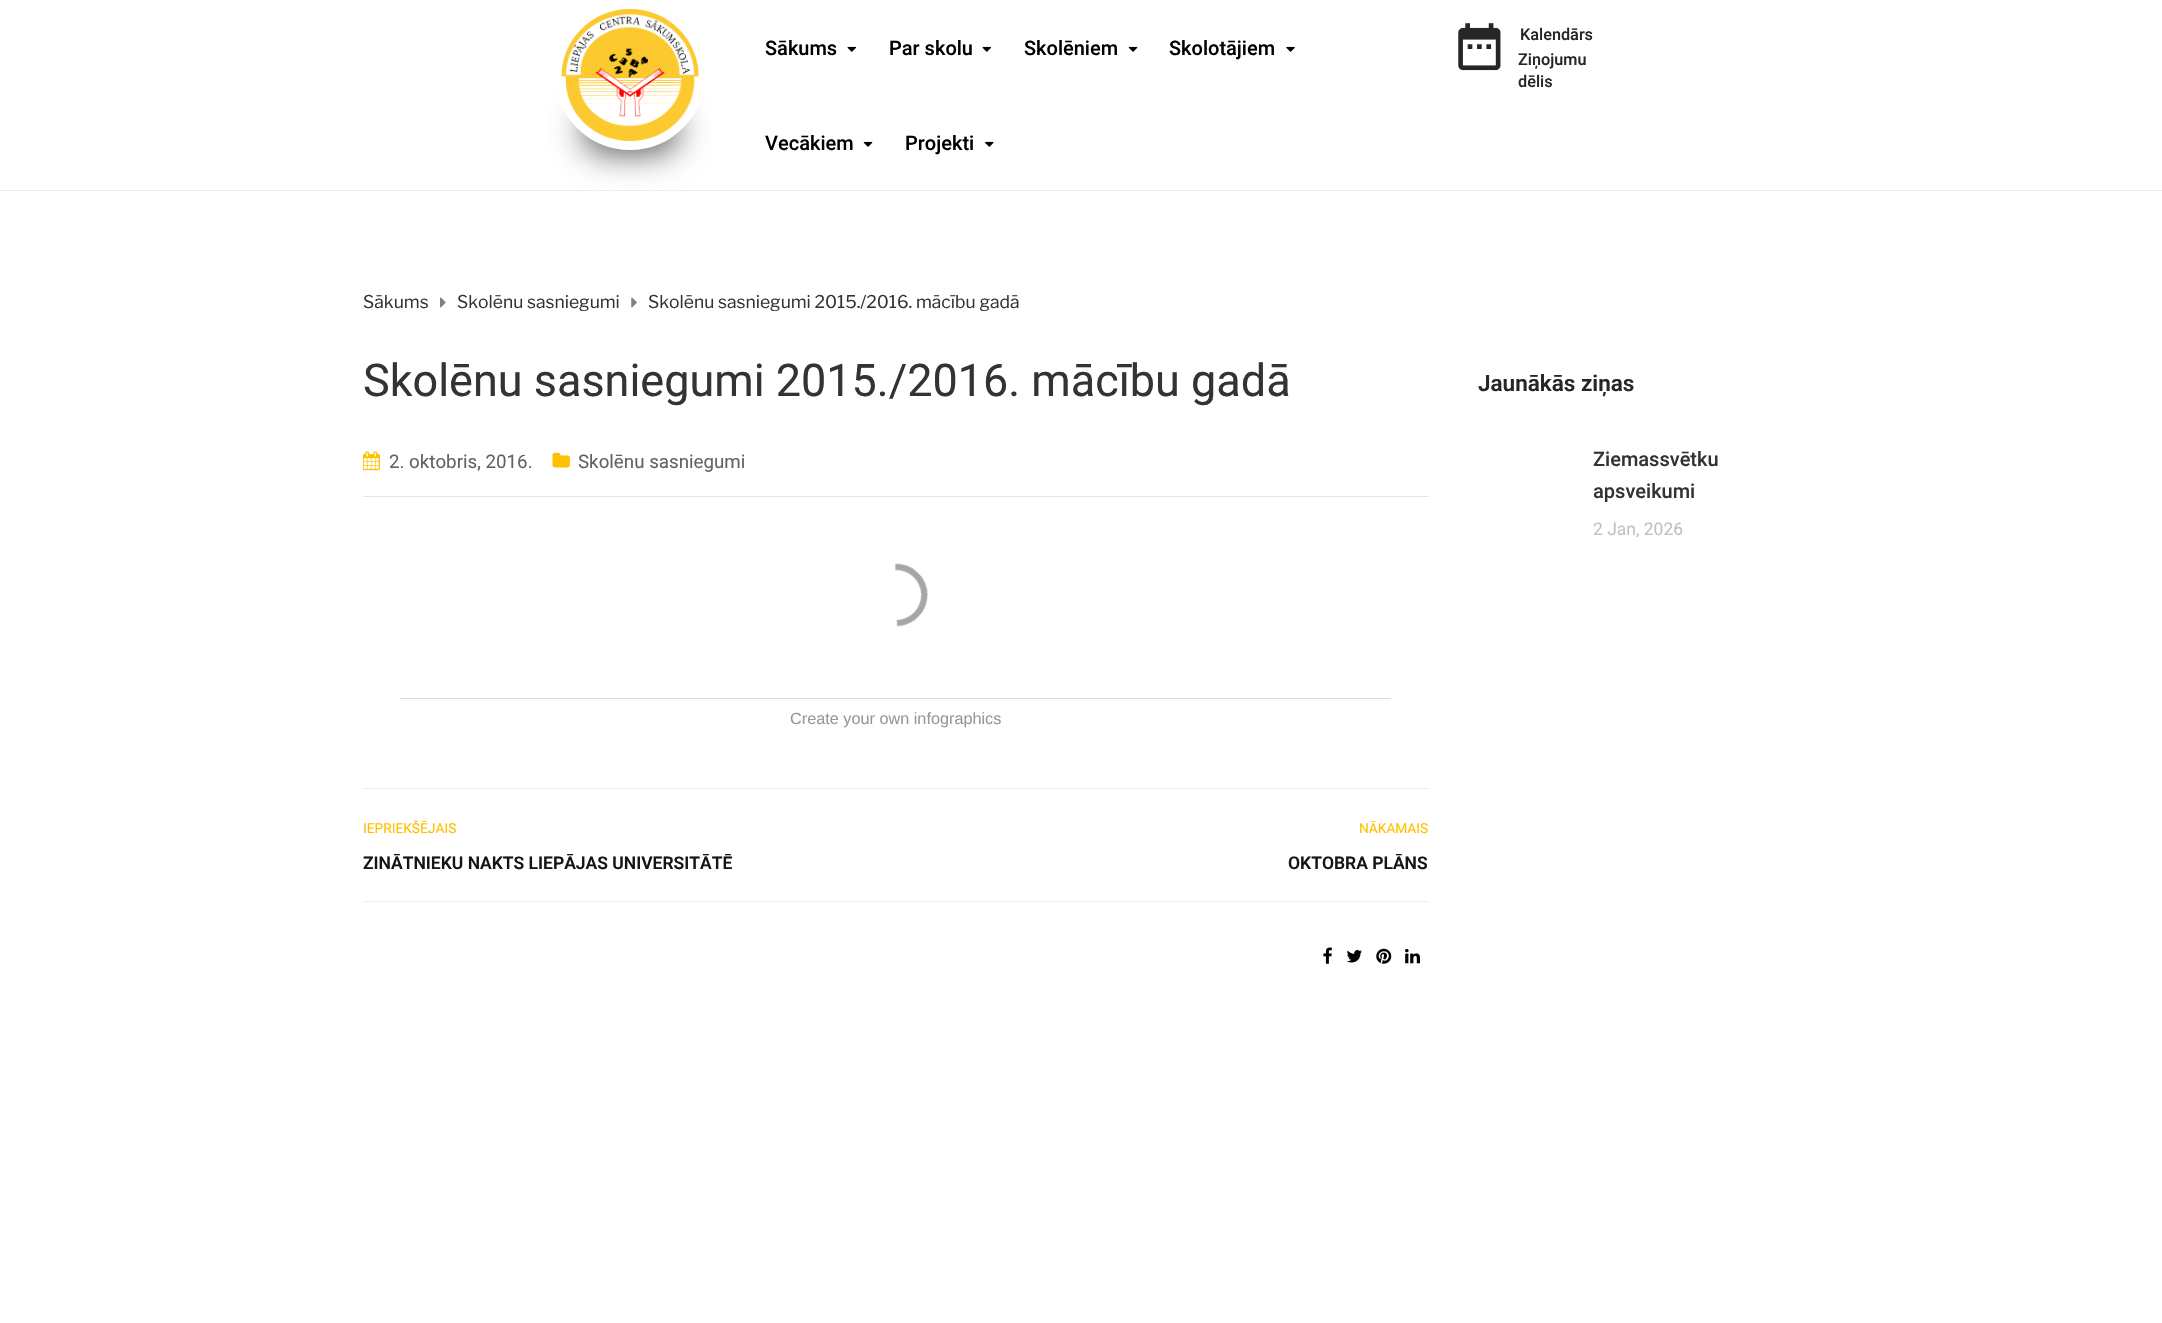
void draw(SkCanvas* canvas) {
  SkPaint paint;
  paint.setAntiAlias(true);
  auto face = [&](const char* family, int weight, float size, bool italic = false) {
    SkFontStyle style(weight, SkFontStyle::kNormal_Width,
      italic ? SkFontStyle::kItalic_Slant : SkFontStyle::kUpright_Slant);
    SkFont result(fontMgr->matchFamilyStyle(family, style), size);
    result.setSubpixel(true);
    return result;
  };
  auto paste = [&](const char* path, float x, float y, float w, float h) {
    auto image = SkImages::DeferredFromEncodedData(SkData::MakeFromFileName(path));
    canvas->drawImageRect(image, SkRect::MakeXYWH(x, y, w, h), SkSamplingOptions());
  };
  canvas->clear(0xffffffff);
  paint.setColor(0xffededed);
  canvas->drawRect(SkRect::MakeXYWH(0, 190, 2162, 1), paint);
  paint.setColor(0xff555555);
  paint.setMaskFilter(SkMaskFilter::MakeBlur(kNormal_SkBlurStyle, 16.5f));
  canvas->drawRoundRect(SkRect::MakeXYWH(583, 105, 95, 48), 48, 48, paint);
  paint.setMaskFilter(nullptr);
  paint.setColor(0xffffffff);
  canvas->drawCircle(630, 75, 72, paint);
  paint.setStroke(true);
  paint.setStrokeWidth(6);
  canvas->drawCircle(630, 75, 72, paint);
  paste("img/1.png", 561, 8, 138, 134);
  paste("img/2.png", 847, 46, 9, 6);
  paste("img/2.png", 982, 46, 9, 6);
  paste("img/3.png", 1128, 46, 10, 6);
  paste("img/4.png", 1286, 46, 9, 6);
  paste("img/3.png", 863, 141, 10, 6);
  paste("img/5.png", 985, 141, 9, 6);
  paste("img/6.png", 1458, 23, 43, 48);
  paste("img/7.png", 440, 297, 6, 11);
  paste("img/8.png", 631, 297, 6, 11);
  paint.setStroke(false);
  paint.setColor(0xffe6e6e6);
  canvas->drawRect(SkRect::MakeXYWH(363, 496, 1066, 1), paint);
  paste("img/9.png", 363, 451, 17, 20);
  paste("img/10.png", 552, 452, 18, 16);
  paste("img/11.png", 894, 563, 34, 64);
  {
    const struct { float x, y, w, h; SkColor color; } items[] = {
      {400, 698, 991, 1, 0xffdadada},
      {363, 788, 1066, 1, 0xffeeeeee},
      {363, 901, 1066, 1, 0xffeeeeee},
    };
    for (auto [x, y, w, h, color] : items) {
      paint.setColor(color);
      canvas->drawRect(SkRect::MakeXYWH(x, y, w, h), paint);
    }
  }
  paste("img/12.png", 1323, 947, 9, 17);
  paste("img/13.png", 1346, 950, 16, 13);
  paste("img/14.png", 1376, 948, 16, 16);
  paste("img/15.png", 1405, 949, 15, 15);
  auto f0 = face("Roboto", 500, 20);
  paint.setColor(0xff000000);
  {
    const struct { const char* s; float x, y; } items[] = {
      {"Sākums", 765, 55},
      {"Par skolu", 889, 55},
      {"Skolēniem", 1024, 55},
      {"Skolotājiem", 1169, 55},
      {"Vecākiem", 765, 150},
      {"Projekti", 905, 150},
    };
    for (auto [s, x, y] : items) {
      canvas->drawString(s, x, y, f0, paint);
    }
  }
  auto f1 = face("Roboto", 500, 16.25f);
  paint.setColor(0xff262628);
  {
    const struct { const char* s; float x, y; } items[] = {
      {"Kalendārs", 1520, 40},
      {"Ziņojumu", 1518, 65},
      {"dēlis", 1518, 87},
    };
    for (auto [s, x, y] : items) {
      canvas->drawString(s, x, y, f1, paint);
    }
  }
  auto f2 = face("Libre Franklin", 400, 17.5f);
  paint.setColor(0xff333333);
  {
    const struct { const char* s; float x, y; } items[] = {
      {"Sākums", 363, 308},
      {"Skolēnu sasniegumi", 457, 308},
      {"Skolēnu sasniegumi 2015./2016. mācību gadā", 648, 308},
    };
    for (auto [s, x, y] : items) {
      canvas->drawString(s, x, y, f2, paint);
    }
  }
  auto f3 = face("Roboto", 400, 45);
  canvas->drawString("Skolēnu sasniegumi 2015./2016. mācību gadā", 363, 396, f3, paint);
  auto f4 = face("Roboto", 400, 18.75f);
  paint.setColor(0xff636364);
  canvas->drawString("2. oktobris, 2016.", 389, 468, f4, paint);
  canvas->drawString("Skolēnu sasniegumi", 578, 468, f4, paint);
  auto f5 = face("Liberation Sans", 400, 16.25f);
  paint.setColor(0xff989898);
  canvas->drawString("Create your own infographics", 790, 724, f5, paint);
  auto f6 = face("Roboto", 400, 13.75f);
  paint.setColor(0xffffc000);
  canvas->drawString("IEPRIEKŠĒJAIS", 363, 833, f6, paint);
  auto f7 = face("Roboto", 600, 17.5f);
  paint.setColor(0xff151515);
  canvas->drawString("ZINĀTNIEKU NAKTS LIEPĀJAS UNIVERSITĀTĒ", 363, 869, f7, paint);
  paint.setColor(0xffffc000);
  canvas->drawString("NĀKAMAIS", 1359, 833, f6, paint);
  paint.setColor(0xff151515);
  canvas->drawString("OKTOBRA PLĀNS", 1288, 869, f7, paint);
  auto f8 = face("Roboto", 600, 22.5f);
  paint.setColor(0xff262628);
  canvas->drawString("Jaunākās ziņas", 1478, 391, f8, paint);
  paint.setColor(0xff333333);
  canvas->drawString("Ziemassvētku", 1593, 466, f0, paint);
  canvas->drawString("apsveikumi", 1593, 498, f0, paint);
  auto f9 = face("Roboto", 400, 17.5f);
  paint.setColor(0xffc1c1c1);
  canvas->drawString("2 Jan, 2026", 1593, 535, f9, paint);
}
